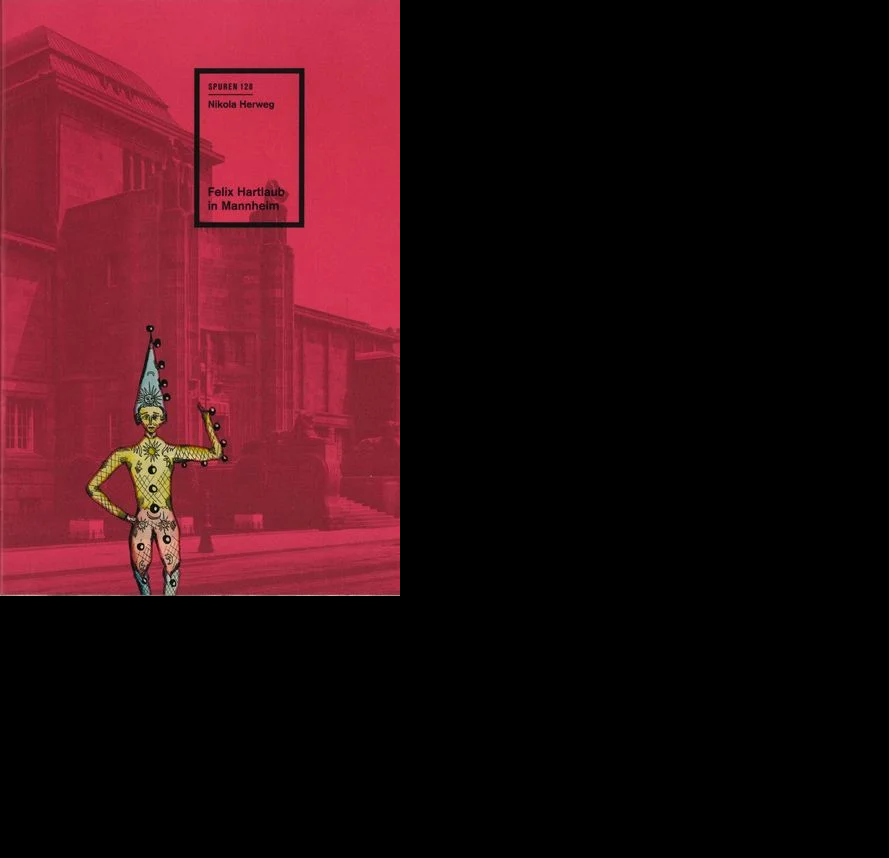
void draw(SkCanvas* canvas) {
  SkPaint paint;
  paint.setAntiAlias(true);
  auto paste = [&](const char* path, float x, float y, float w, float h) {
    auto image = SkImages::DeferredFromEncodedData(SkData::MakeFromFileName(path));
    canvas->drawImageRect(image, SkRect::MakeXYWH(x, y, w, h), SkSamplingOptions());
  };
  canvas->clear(0xff000000);
  paste("img/1.png", 0, 0, 400, 596);
}
